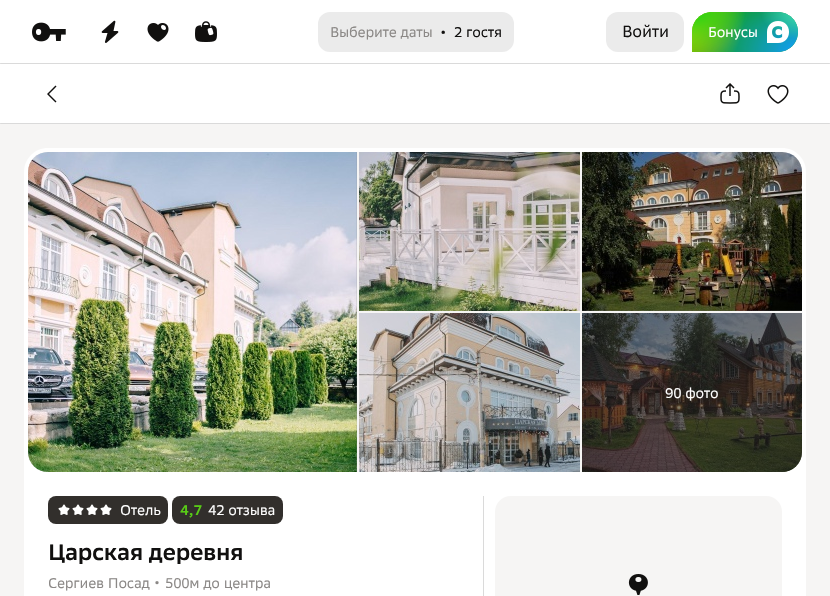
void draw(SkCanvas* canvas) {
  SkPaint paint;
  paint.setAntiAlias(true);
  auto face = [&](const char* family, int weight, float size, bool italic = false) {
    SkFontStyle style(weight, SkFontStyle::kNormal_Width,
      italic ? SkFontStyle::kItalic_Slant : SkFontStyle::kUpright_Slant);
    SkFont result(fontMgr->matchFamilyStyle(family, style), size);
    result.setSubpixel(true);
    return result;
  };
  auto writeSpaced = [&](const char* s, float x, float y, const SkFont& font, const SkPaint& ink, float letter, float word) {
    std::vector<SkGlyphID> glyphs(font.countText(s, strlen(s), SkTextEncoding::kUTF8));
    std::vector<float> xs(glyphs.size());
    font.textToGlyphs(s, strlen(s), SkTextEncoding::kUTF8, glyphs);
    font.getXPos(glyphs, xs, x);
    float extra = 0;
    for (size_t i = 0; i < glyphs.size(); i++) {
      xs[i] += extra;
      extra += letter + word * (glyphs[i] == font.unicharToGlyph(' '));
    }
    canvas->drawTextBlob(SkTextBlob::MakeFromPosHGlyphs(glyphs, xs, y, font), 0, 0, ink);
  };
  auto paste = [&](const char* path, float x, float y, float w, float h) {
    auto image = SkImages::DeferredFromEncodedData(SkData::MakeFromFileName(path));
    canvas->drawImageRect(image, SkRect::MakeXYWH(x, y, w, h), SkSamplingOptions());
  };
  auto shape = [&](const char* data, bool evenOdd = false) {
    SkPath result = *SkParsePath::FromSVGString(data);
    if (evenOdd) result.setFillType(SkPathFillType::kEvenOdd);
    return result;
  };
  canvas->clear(0xfff6f5f4);
  paint.setColor(0xffffffff);
  canvas->drawRect(SkRect::MakeXYWH(0, 0, 830, 124), paint);
  paint.setColor(0xffdadada);
  canvas->drawRoundRect(SkRect::MakeXYWH(0, 63, 830, 1), 0.5f, 0.5f, paint);
  paste("img/1.png", 32, 22, 34, 20);
  paste("img/2.png", 101, 20, 18, 23);
  paste("img/3.png", 147, 23, 22, 19);
  paste("img/4.png", 195, 21, 22, 21);
  paint.setColor(0xffebebeb);
  canvas->drawRoundRect(SkRect::MakeXYWH(318, 12, 196, 40), 12, 12, paint);
  canvas->drawRoundRect(SkRect::MakeXYWH(606, 12, 78, 40), 12, 12, paint);
  paint.setColor(0xff0c9c0c);
  canvas->drawPath(shape("M712 12H778C789 12 798 21 798 32C798 43 789 52 778 52H692V32C692 21 701 12 712 12Z"), paint);
  {
    const SkColor colors[] = {0xff129dfa, 0x00129dfa};
    const float stops[] = {0, 1};
    SkMatrix m = SkMatrix::Translate(798, 52).preScale(104, 74);
    paint.setShader(SkGradientShader::MakeRadial({0, 0}, 1, colors, stops, 2, SkTileMode::kClamp, 0, &m));
    paint.setAlpha(255);
  }
  canvas->drawPath(shape("M712 12H778C789 12 798 21 798 32C798 43 789 52 778 52H692V32C692 21 701 12 712 12Z"), paint);
  {
    const SkColor colors[] = {0xff42e3b4, 0x0042e3b4};
    const float stops[] = {0, 1};
    SkMatrix m = SkMatrix::Translate(802, 12).preScale(41, 27);
    paint.setShader(SkGradientShader::MakeRadial({0, 0}, 1, colors, stops, 2, SkTileMode::kClamp, 0, &m));
    paint.setAlpha(255);
  }
  canvas->drawPath(shape("M712 12H778C789 12 798 21 798 32C798 43 789 52 778 52H692V32C692 21 701 12 712 12Z"), paint);
  {
    const SkColor colors[] = {0xfffaed05, 0x00faed05};
    const float stops[] = {0, 1};
    SkMatrix m = SkMatrix::Translate(687, 12).preScale(58, 71);
    paint.setShader(SkGradientShader::MakeRadial({0, 0}, 1, colors, stops, 2, SkTileMode::kClamp, 0, &m));
    paint.setAlpha(255);
  }
  canvas->drawPath(shape("M712 12H778C789 12 798 21 798 32C798 43 789 52 778 52H692V32C692 21 701 12 712 12Z"), paint);
  {
    const SkColor colors[] = {0xff15d015, 0x0015d015};
    const float stops[] = {0, 1};
    SkMatrix m = SkMatrix::Translate(692, 12).preScale(57, 40);
    paint.setShader(SkGradientShader::MakeRadial({0, 0}, 1, colors, stops, 2, SkTileMode::kClamp, 0, &m));
    paint.setAlpha(255);
  }
  canvas->drawPath(shape("M712 12H778C789 12 798 21 798 32C798 43 789 52 778 52H692V32C692 21 701 12 712 12Z"), paint);
  paste("img/5.png", 767, 21, 22, 22);
  paint.setShader(nullptr);
  paint.setColor(0xffdadada);
  canvas->drawRoundRect(SkRect::MakeXYWH(0, 123, 830, 1), 0.5f, 0.5f, paint);
  paint.setColor(0xff11100f);
  canvas->drawPath(shape("M55.5 102.5L56.5 101.5L49 94L56.5 86.5L55.5 85.5L47 94Z", true), paint);
  paste("img/6.png", 720, 83, 20, 21);
  paste("img/7.png", 767, 85, 22, 19);
  paint.setColor(0xffffffff);
  canvas->drawPath(shape("M48 148H782C795.5 148 806 158.5 806 172V596H24V172C24 158.5 34.5 148 48 148Z"), paint);
  paint.setColor(0xfff6f5f4);
  canvas->drawRoundRect(SkRect::MakeXYWH(28, 152, 774, 320), 20, 20, paint);
  paint.setColor(0xffedebea);
  canvas->drawPath(shape("M48 152H357V472H48C37 472 28 463 28 452V172C28 161 37 152 48 152Z"), paint);
  paste("img/8.png", 28, 152, 329, 320);
  paint.setColor(0x29848382);
  canvas->drawPath(shape("M28 168V172V452V456ZM48 152H44H356V472H44H48H357V152Z", true), paint);
  paste("img/9.png", 359, 152, 221, 159);
  paste("img/10.png", 359, 313, 221, 159);
  paint.setColor(0xffedebea);
  canvas->drawPath(shape("M582 152H782C793 152 802 161 802 172V311H582Z"), paint);
  paste("img/11.png", 582, 152, 220, 159);
  paint.setColor(0x29848382);
  canvas->drawPath(shape("M582 152V311H802V172V168V310H582V152H786H782Z"), paint);
  paste("img/12.png", 582, 313, 220, 159);
  paint.setColor(0x80000000);
  canvas->drawPath(shape("M582 313H802V452C802 463 793 472 782 472H582Z"), paint);
  canvas->save();
  canvas->clipRect(SkRect::MakeXYWH(582, 313, 220, 159));
  paint.setColor(0x29848382);
  canvas->drawPath(shape("M582 313V472H749C763 472 798 479 802 455V313Z"), paint);
  canvas->restore();
  paint.setColor(0xff322f2c);
  canvas->drawRoundRect(SkRect::MakeXYWH(48, 496, 120, 28), 8, 8, paint);
  paste("img/13.png", 58, 504, 12, 11);
  paste("img/13.png", 72, 504, 12, 11);
  paste("img/13.png", 86, 504, 12, 11);
  paste("img/13.png", 100, 504, 12, 11);
  canvas->drawRoundRect(SkRect::MakeXYWH(172, 496, 111, 28), 8, 8, paint);
  paint.setColor(0xffdadada);
  canvas->drawPath(shape("M483.5 496C484 496 484 496 484 496.5V596H483V496.5C483 496 483 496 483.5 496Z"), paint);
  paint.setColor(0xfff6f5f4);
  canvas->drawPath(shape("M511 496H766C775 496 782 503 782 512V596H495V512C495 503 502 496 511 496Z"), paint);
  paste("img/14.png", 628, 574, 20, 21);
  auto f0 = face("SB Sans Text", 400, 14);
  paint.setColor(0xff8b8886);
  writeSpaced("Выберите даты", 330, 37, f0, paint, -0.25f, 0);
  auto f1 = face("SB Sans Text", 400, 16);
  paint.setColor(0xff11100f);
  writeSpaced("•", 440, 38, f1, paint, -0.25f, 0);
  writeSpaced("2 гостя", 454, 37, f0, paint, -0.25f, 0);
  writeSpaced("Войти", 622, 37, f1, paint, -0.25f, 0);
  paint.setColor(0xffffffff);
  {
    const struct { const char* s; float x, y; } items[] = {
      {"Бонусы", 708, 37},
      {"90 фото", 665, 398},
      {"Отель", 120, 515},
    };
    for (auto [s, x, y] : items) {
      writeSpaced(s, x, y, f0, paint, -0.25f, 0);
    }
  }
  auto f2 = face("SB Sans Text", 600, 14);
  paint.setColor(0xff58cc16);
  writeSpaced("4,7", 180, 515, f2, paint, -0.25f, 0);
  paint.setColor(0xffffffff);
  writeSpaced("42 отзыва", 208, 515, f0, paint, -0.25f, 0);
  auto f3 = face("SB Sans Text", 600, 22);
  paint.setColor(0xff11100f);
  writeSpaced("Царская деревня", 48, 560, f3, paint, -0.4f, 0);
  paint.setColor(0xff8b8886);
  writeSpaced("Сергиев Посад", 48, 588, f0, paint, -0.25f, 0);
  auto f4 = face("SB Sans Text", 400, 15);
  writeSpaced("•", 154, 588, f4, paint, -0.25f, 0);
  writeSpaced("500 м до центра", 165, 588, f0, paint, -0.25f, 0);
}
